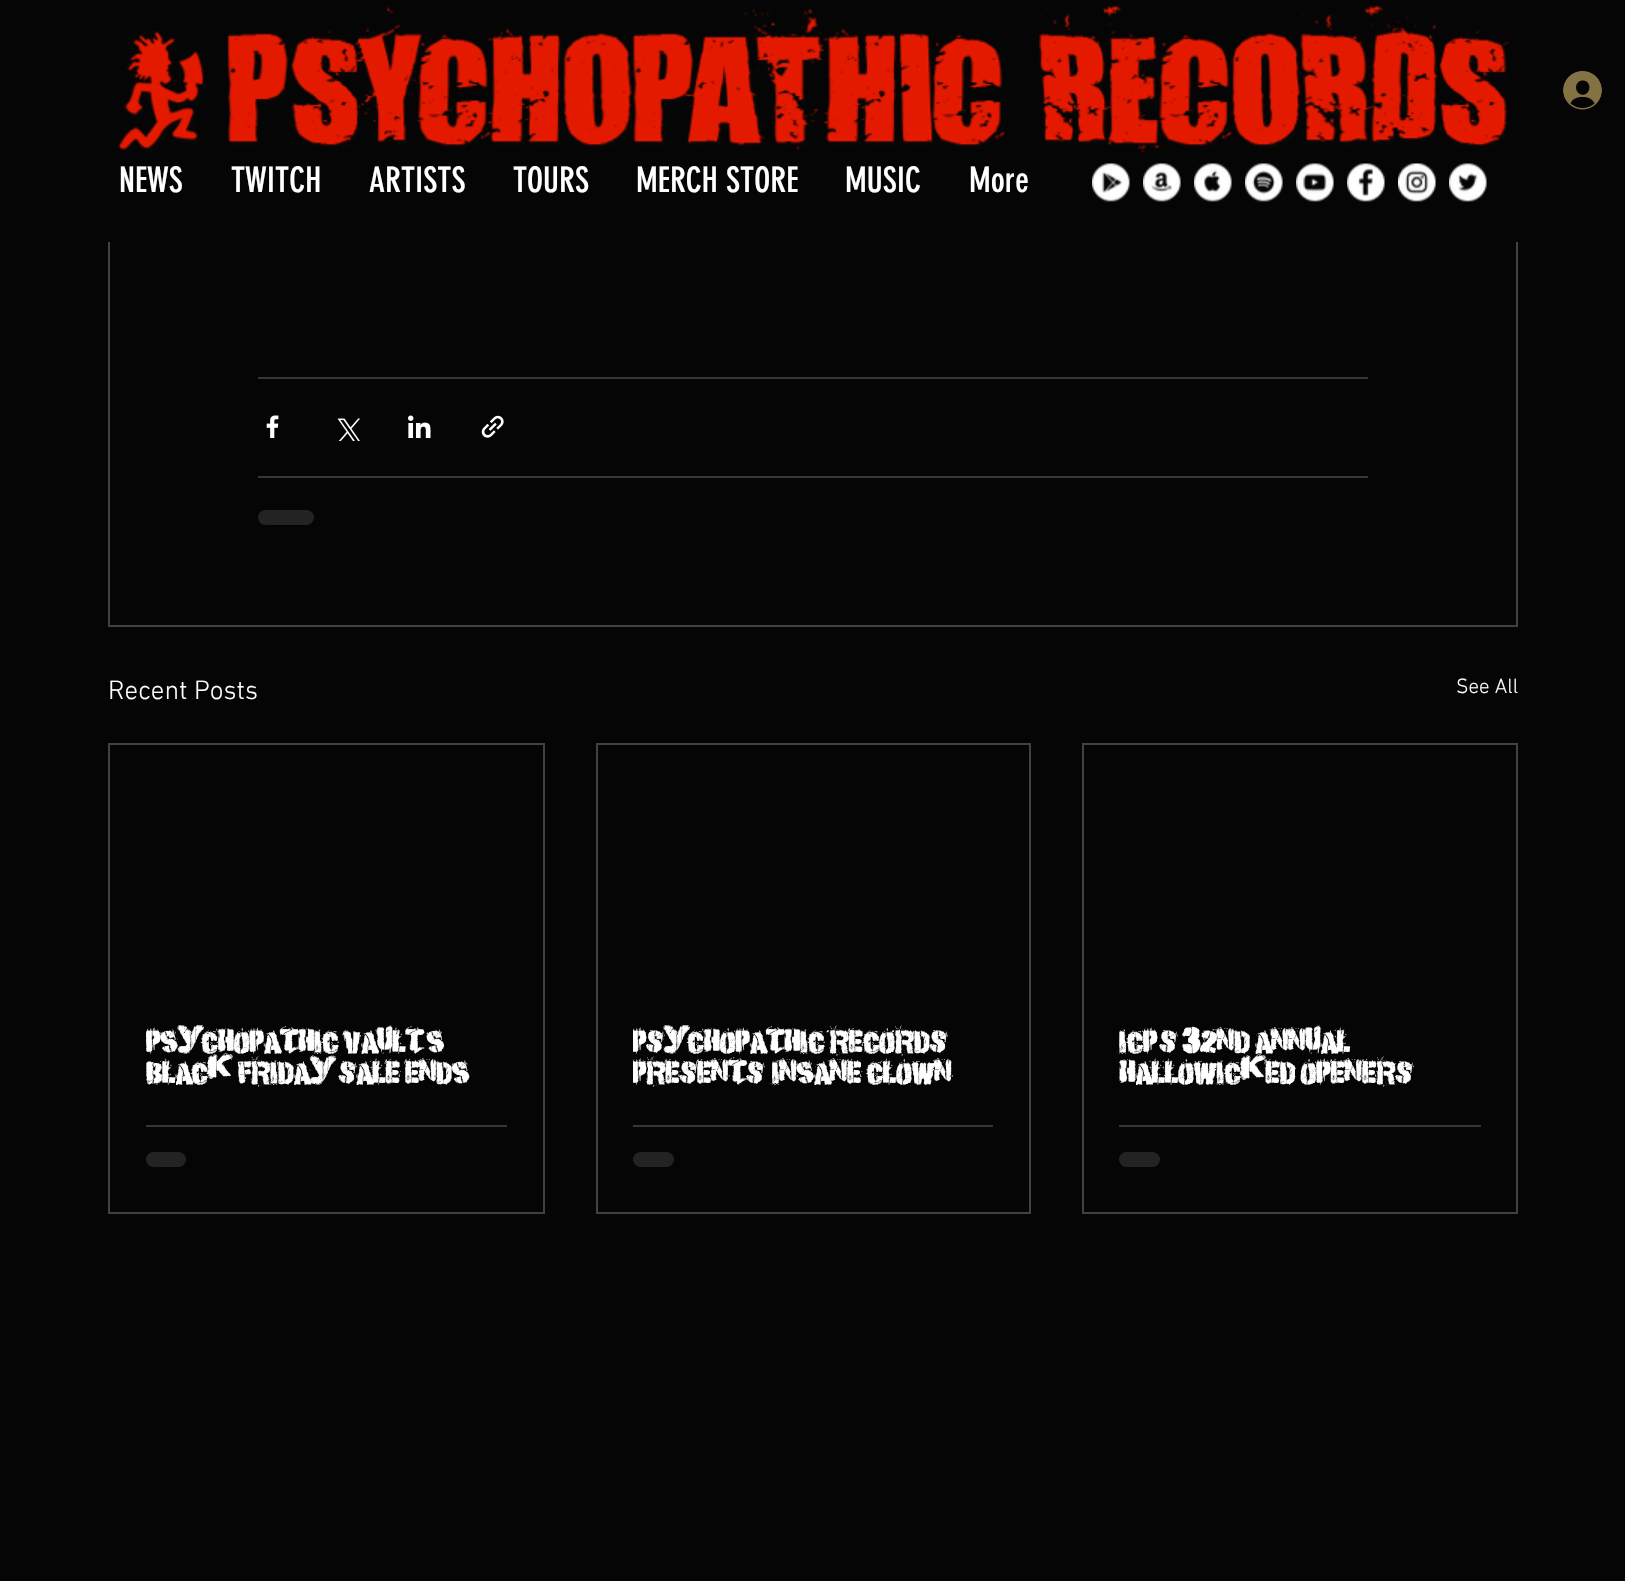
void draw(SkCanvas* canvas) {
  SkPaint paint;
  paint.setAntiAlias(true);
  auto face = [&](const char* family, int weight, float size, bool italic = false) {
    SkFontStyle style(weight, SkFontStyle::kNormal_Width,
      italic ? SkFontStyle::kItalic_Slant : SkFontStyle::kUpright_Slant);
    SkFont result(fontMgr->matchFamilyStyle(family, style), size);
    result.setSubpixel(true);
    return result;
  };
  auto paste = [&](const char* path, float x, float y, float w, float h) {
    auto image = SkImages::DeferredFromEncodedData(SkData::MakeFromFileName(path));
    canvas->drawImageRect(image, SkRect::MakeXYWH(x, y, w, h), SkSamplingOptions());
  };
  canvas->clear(0xff050505);
  paint.setStroke(true);
  paint.setStrokeWidth(2);
  paint.setColor(0xff414141);
  canvas->drawRect(SkRect::MakeXYWH(109, -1, 1408, 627), paint);
  paint.setStroke(false);
  paint.setColor(0xff050505);
  canvas->drawRect(SkRect::MakeXYWH(108, 0, 1410, 242), paint);
  paste("img/1.png", 118, 5, 1392, 148);
  paste("img/2.png", 1563, 71, 39, 39);
  paste("img/3.png", 1092, 163, 38, 39);
  paste("img/4.png", 1143, 163, 38, 39);
  paste("img/5.png", 1194, 163, 38, 39);
  paste("img/6.png", 1245, 163, 38, 39);
  paste("img/7.png", 1296, 163, 38, 39);
  paste("img/8.png", 1347, 163, 38, 39);
  paste("img/9.png", 1398, 163, 38, 39);
  paste("img/10.png", 1449, 163, 38, 39);
  paint.setColor(0xff373737);
  canvas->drawRect(SkRect::MakeXYWH(258, 377, 1110, 2), paint);
  paste("img/11.png", 266, 415, 13, 23);
  paste("img/12.png", 337, 418, 23, 23);
  paste("img/13.png", 408, 415, 23, 23);
  paste("img/14.png", 481, 415, 23, 23);
  canvas->drawRect(SkRect::MakeXYWH(258, 476, 1110, 2), paint);
  paint.setColor(0xff232323);
  canvas->drawRoundRect(SkRect::MakeXYWH(258, 510, 56, 15), 7.5f, 7.5f, paint);
  paint.setStroke(true);
  paint.setColor(0xff414141);
  canvas->drawRect(SkRect::MakeXYWH(109, 744, 435, 469), paint);
  paint.setStroke(false);
  paint.setColor(0xff373737);
  canvas->drawRect(SkRect::MakeXYWH(146, 1125, 361, 2), paint);
  paint.setColor(0xff232323);
  canvas->drawRoundRect(SkRect::MakeXYWH(146, 1152, 40, 15), 7.5f, 7.5f, paint);
  paint.setStroke(true);
  paint.setColor(0xff414141);
  canvas->drawRect(SkRect::MakeXYWH(597, 744, 433, 469), paint);
  paint.setStroke(false);
  paint.setColor(0xff373737);
  canvas->drawRect(SkRect::MakeXYWH(633, 1125, 360, 2), paint);
  paint.setColor(0xff232323);
  canvas->drawRoundRect(SkRect::MakeXYWH(633, 1152, 41, 15), 7.5f, 7.5f, paint);
  paint.setStroke(true);
  paint.setColor(0xff414141);
  canvas->drawRect(SkRect::MakeXYWH(1083, 744, 434, 469), paint);
  paint.setStroke(false);
  paint.setColor(0xff373737);
  canvas->drawRect(SkRect::MakeXYWH(1119, 1125, 362, 2), paint);
  paint.setColor(0xff232323);
  canvas->drawRoundRect(SkRect::MakeXYWH(1119, 1152, 41, 15), 7.5f, 7.5f, paint);
  auto f0 = face("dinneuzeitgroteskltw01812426", 400, 34.5f);
  paint.setColor(0xffffffff);
  {
    const struct { const char* s; float x, y; } items[] = {
      {"NEWS", 119, 192},
      {"TWITCH", 231, 192},
      {"ARTISTS", 369, 192},
      {"TOURS", 513, 192},
      {"MERCH STORE", 636, 192},
      {"MUSIC", 845, 192},
      {"More", 969, 192},
    };
    for (auto [s, x, y] : items) {
      canvas->drawString(s, x, y, f0, paint);
    }
  }
  auto f1 = face("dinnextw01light", 300, 27);
  canvas->drawString("Recent Posts", 108, 699, f1, paint);
  auto f2 = face("dinnextw01light", 300, 21);
  canvas->drawString("See All", 1456, 693, f2, paint);
  canvas->save();
  canvas->clipRect(SkRect::MakeXYWH(146, 1025, 361, 63));
  auto f3 = face("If", 400, 27);
  canvas->drawString("Psychopathic Vault’s", 146, 1048, f3, paint);
  canvas->drawString("Black Friday Sale Ends…", 146, 1079, f3, paint);
  canvas->restore();
  canvas->save();
  canvas->clipRect(SkRect::MakeXYWH(633, 1025, 360, 63));
  canvas->drawString("PSYCHOPATHIC RECORDS", 632, 1048, f3, paint);
  canvas->drawString("PRESENTS: Insane Clown…", 632, 1079, f3, paint);
  canvas->restore();
  canvas->drawString("ICP'S 32ND ANNUAL", 1119, 1048, f3, paint);
  canvas->save();
  canvas->clipRect(SkRect::MakeXYWH(1119, 1025, 362, 63));
  canvas->drawString("HALLOWICKED OPENERS…", 1119, 1079, f3, paint);
  canvas->restore();
}
